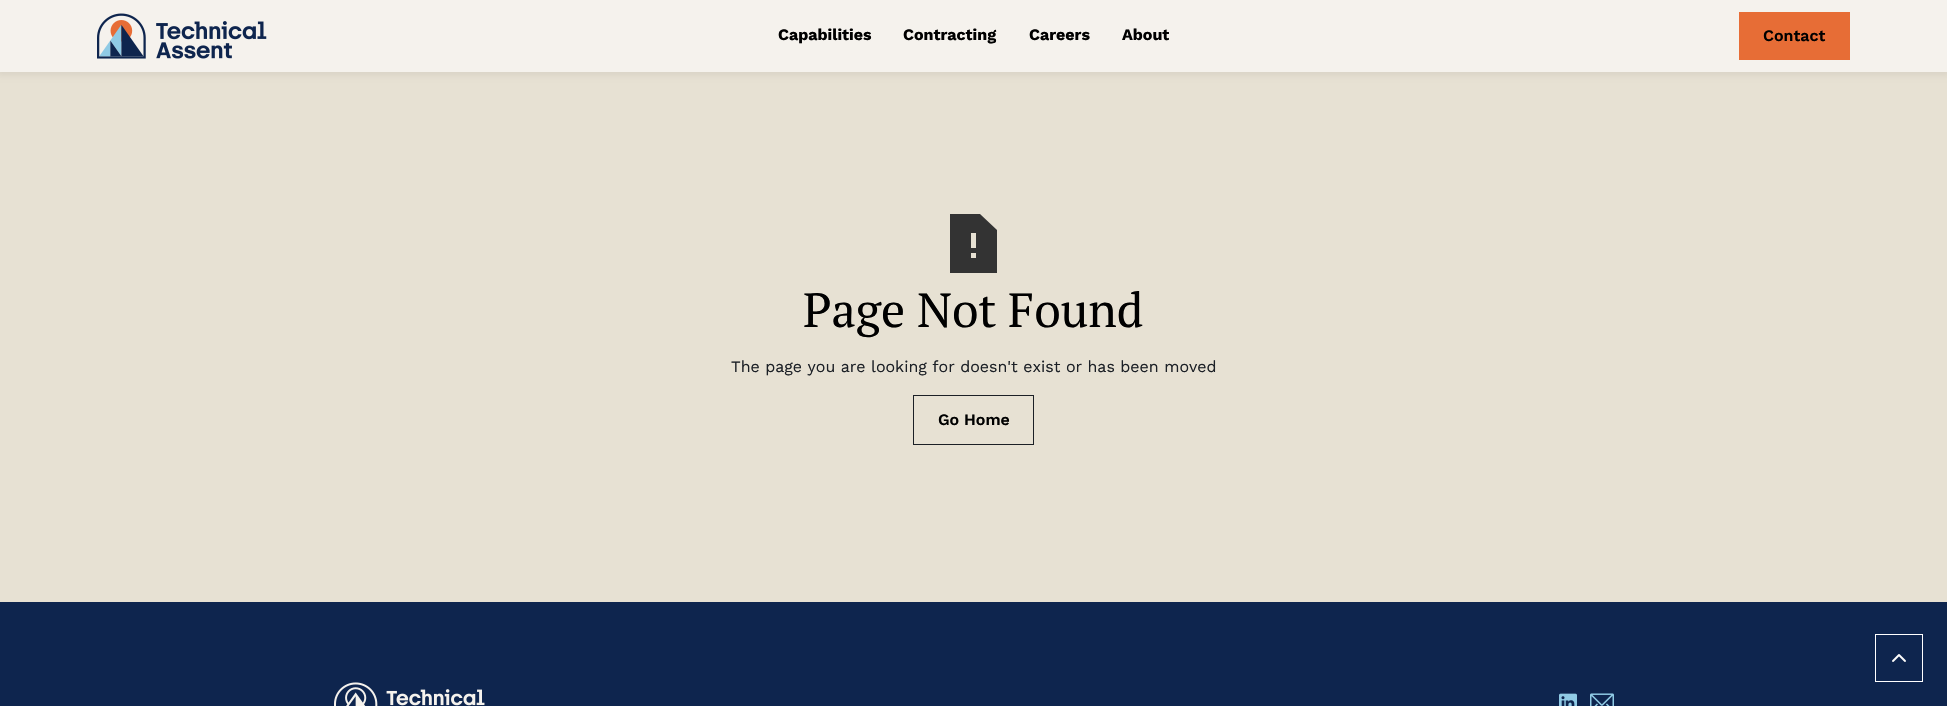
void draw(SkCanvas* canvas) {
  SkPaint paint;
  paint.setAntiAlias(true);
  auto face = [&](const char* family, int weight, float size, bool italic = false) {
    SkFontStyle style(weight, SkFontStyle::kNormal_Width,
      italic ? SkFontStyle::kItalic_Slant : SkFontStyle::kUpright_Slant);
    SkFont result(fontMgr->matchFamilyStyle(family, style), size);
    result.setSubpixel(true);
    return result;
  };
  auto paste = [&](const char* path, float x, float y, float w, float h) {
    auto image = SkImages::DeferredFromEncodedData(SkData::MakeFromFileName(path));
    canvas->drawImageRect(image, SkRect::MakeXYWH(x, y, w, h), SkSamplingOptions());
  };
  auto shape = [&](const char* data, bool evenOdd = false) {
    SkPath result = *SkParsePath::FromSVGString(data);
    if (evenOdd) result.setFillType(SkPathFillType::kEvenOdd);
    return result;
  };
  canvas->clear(0xffe7e1d3);
  paint.setColor(0x0d000000);
  paint.setMaskFilter(SkMaskFilter::MakeBlur(kNormal_SkBlurStyle, 2.5f));
  canvas->drawRect(SkRect::MakeXYWH(-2, 0, 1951, 76), paint);
  paint.setMaskFilter(nullptr);
  paint.setColor(0xfff5f2ed);
  canvas->drawRect(SkRect::MakeXYWH(0, 0, 1947, 72), paint);
  paste("img/1.png", 97, 13, 170, 46);
  paint.setColor(0xffe76d36);
  canvas->drawRect(SkRect::MakeXYWH(1739, 12, 111, 48), paint);
  paint.setColor(0xff333333);
  canvas->drawPath(shape("M950 214H980L997 230V273H950ZM971 233H976V248H971ZM971 253H976V258H971Z", true), paint);
  paint.setStroke(true);
  paint.setStrokeWidth(1);
  paint.setColor(0xff1c2026);
  canvas->drawRect(SkRect::MakeXYWH(913.5f, 395.5f, 120, 49), paint);
  paint.setStroke(false);
  paint.setColor(0xff0e254e);
  canvas->drawRect(SkRect::MakeXYWH(0, 602, 1947, 104), paint);
  paste("img/2.png", 334, 682, 151, 24);
  paste("img/3.png", 1559, 693, 18, 13);
  paste("img/4.png", 1590, 693, 24, 13);
  paint.setStroke(true);
  paint.setColor(0xffffffff);
  canvas->drawRect(SkRect::MakeXYWH(1875.5f, 634.5f, 47, 47), paint);
  paste("img/5.png", 1892, 654, 14, 8);
  auto f0 = face("Work Sans", 700, 16);
  paint.setStroke(false);
  paint.setColor(0xff000000);
  {
    const struct { const char* s; float x, y; } items[] = {
      {"Capabilities", 778, 40},
      {"Contracting", 903, 40},
      {"Careers", 1029, 40},
      {"About", 1122, 40},
    };
    for (auto [s, x, y] : items) {
      canvas->drawString(s, x, y, f0, paint);
    }
  }
  auto f1 = face("Work Sans", 600, 16);
  canvas->drawString("Contact", 1763, 41, f1, paint);
  auto f2 = face("PT Serif", 400, 48);
  canvas->drawString("Page Not Found", 803, 327, f2, paint);
  auto f3 = face("Work Sans", 400, 16);
  paint.setColor(0xff1c2026);
  canvas->drawString("The page you are looking for doesn't exist or has been moved", 731, 372, f3, paint);
  paint.setColor(0xff000000);
  canvas->drawString("Go Home", 938, 425, f1, paint);
}
